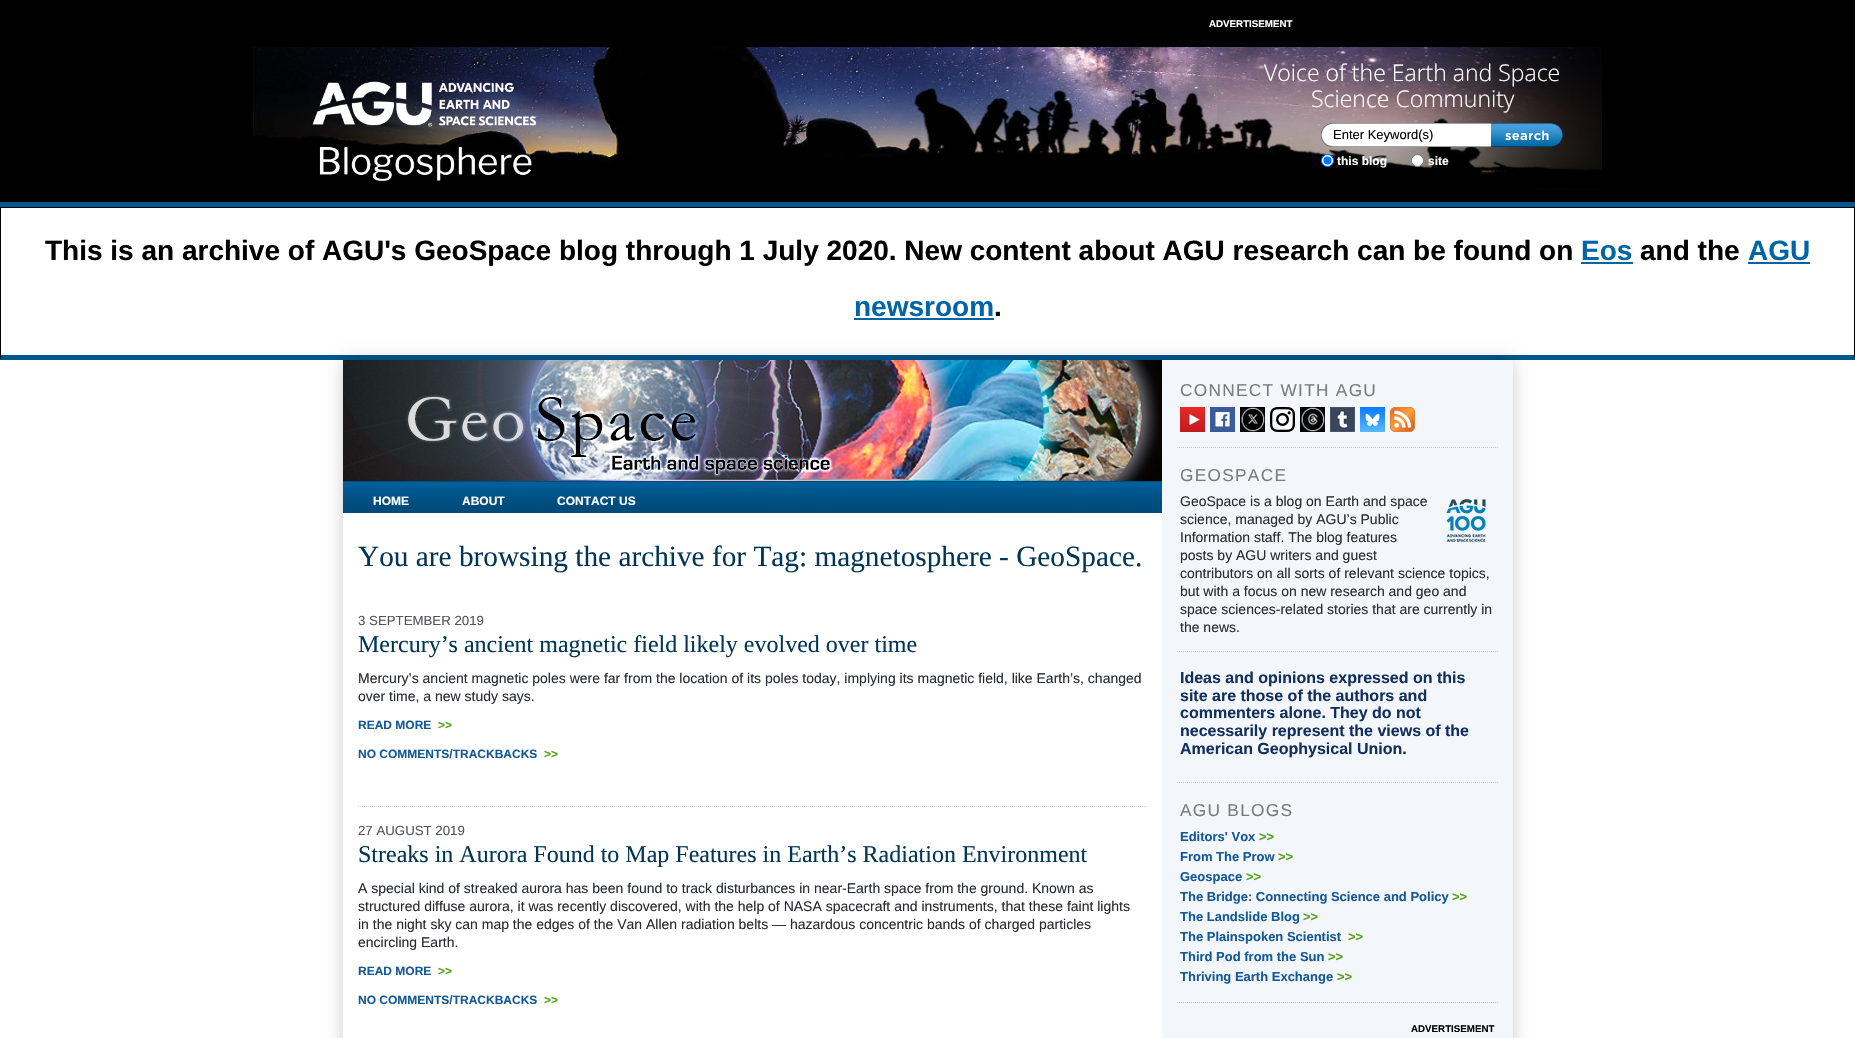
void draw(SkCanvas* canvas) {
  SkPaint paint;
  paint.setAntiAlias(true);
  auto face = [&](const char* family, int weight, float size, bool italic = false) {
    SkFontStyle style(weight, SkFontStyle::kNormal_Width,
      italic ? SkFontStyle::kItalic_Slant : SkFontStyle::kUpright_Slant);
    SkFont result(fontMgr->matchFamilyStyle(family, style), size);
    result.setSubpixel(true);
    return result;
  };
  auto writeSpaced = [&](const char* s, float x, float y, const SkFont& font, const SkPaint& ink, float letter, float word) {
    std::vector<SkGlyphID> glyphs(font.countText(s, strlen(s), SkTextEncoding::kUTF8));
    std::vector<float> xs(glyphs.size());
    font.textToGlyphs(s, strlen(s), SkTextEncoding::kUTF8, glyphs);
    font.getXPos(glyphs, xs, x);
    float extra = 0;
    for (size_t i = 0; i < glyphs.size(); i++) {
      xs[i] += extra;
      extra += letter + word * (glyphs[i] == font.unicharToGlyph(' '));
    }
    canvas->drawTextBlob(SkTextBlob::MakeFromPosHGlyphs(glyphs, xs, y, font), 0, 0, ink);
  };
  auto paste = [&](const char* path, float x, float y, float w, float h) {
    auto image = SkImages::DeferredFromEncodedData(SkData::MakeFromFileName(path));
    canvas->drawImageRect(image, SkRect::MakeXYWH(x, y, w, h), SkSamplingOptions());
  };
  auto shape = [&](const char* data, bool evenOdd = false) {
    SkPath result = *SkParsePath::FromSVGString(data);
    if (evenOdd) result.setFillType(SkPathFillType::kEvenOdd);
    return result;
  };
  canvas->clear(0xff000000);
  paint.setColor(0xff00578e);
  canvas->drawRect(SkRect::MakeXYWH(0, 202, 1855, 5), paint);
  paste("img/1.png", 253, 47, 1349, 143);
  paste("img/2.png", 312, 81, 225, 100);
  paste("img/3.png", 1321, 123, 242, 24);
  paste("img/4.png", 1505, 130, 44, 11);
  paint.setColor(0xffffffff);
  canvas->drawCircle(1327.5f, 160.5f, 6, paint);
  paint.setStroke(true);
  paint.setStrokeWidth(1);
  paint.setColor(0xff0075ff);
  canvas->drawCircle(1327.5f, 160.5f, 6, paint);
  paint.setStroke(false);
  canvas->drawCircle(1327.5f, 160.5f, 4, paint);
  paint.setColor(0xffffffff);
  canvas->drawCircle(1417.5f, 160.5f, 6, paint);
  paint.setStroke(true);
  paint.setColor(0xff767676);
  canvas->drawCircle(1417.5f, 160.5f, 6, paint);
  paint.setStroke(false);
  paint.setColor(0xffffffff);
  canvas->drawRect(SkRect::MakeXYWH(1, 208, 1853, 147), paint);
  paint.setColor(0xff00578e);
  canvas->drawPath(shape("M1855 360H0L1 355H1854Z"), paint);
  paint.setColor(0xff000000);
  canvas->drawPath(shape("M0 360V207L1 208V355Z"), paint);
  {
    const struct { float x, y, w, h; SkColor color; } items[] = {
      {1581, 262, 52, 2, 0xff0065a4},
      {1748, 262, 62, 2, 0xff0065a4},
      {854, 318, 140, 2, 0xff0065a4},
      {0, 360, 1855, 678, 0xffffffff},
    };
    for (auto [x, y, w, h, color] : items) {
      paint.setColor(color);
      canvas->drawRect(SkRect::MakeXYWH(x, y, w, h), paint);
    }
  }
  canvas->save();
  canvas->clipPath(shape("M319 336H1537V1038H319ZM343 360H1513V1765H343Z", true), true);
  paint.setColor(0x33000000);
  paint.setMaskFilter(SkMaskFilter::MakeBlur(kNormal_SkBlurStyle, 7.5f));
  canvas->drawRect(SkRect::MakeXYWH(343, 360, 1170, 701), paint);
  paint.setMaskFilter(nullptr);
  canvas->restore();
  paste("img/5.png", 343, 360, 819, 121);
  paste("img/6.png", 343, 481, 819, 32);
  paint.setStroke(true);
  paint.setColor(0xffcccccc);
  paint.setPathEffect(SkDashPathEffect::Make({{1, 1}}, 0));
  canvas->drawPath(shape("M358 806.5H1147"), paint);
  paint.setPathEffect(nullptr);
  paint.setStroke(false);
  paint.setColor(0xfff3f6fb);
  canvas->drawRect(SkRect::MakeXYWH(1162, 360, 351, 678), paint);
  paint.setStroke(true);
  paint.setColor(0xffcdcdcd);
  paint.setPathEffect(SkDashPathEffect::Make({{1, 1}}, 0));
  canvas->drawPath(shape("M1177 447.5H1498"), paint);
  paint.setPathEffect(nullptr);
  paste("img/7.png", 1180, 407, 25, 25);
  paste("img/8.png", 1210, 407, 25, 25);
  paste("img/9.png", 1240, 407, 25, 25);
  paste("img/10.png", 1270, 407, 25, 25);
  paste("img/11.png", 1300, 407, 25, 25);
  paste("img/12.png", 1330, 407, 25, 25);
  paste("img/13.png", 1360, 407, 25, 25);
  paste("img/14.png", 1390, 407, 25, 25);
  paint.setPathEffect(SkDashPathEffect::Make({{1, 1}}, 0));
  canvas->drawPath(shape("M1177 651.5H1498"), paint);
  paint.setPathEffect(nullptr);
  paste("img/15.png", 1446, 499, 40, 43);
  paint.setPathEffect(SkDashPathEffect::Make({{1, 1}}, 0));
  canvas->drawPath(shape("M1177 782.5H1498"), paint);
  paint.setPathEffect(nullptr);
  paint.setPathEffect(SkDashPathEffect::Make({{1, 1}}, 0));
  canvas->drawPath(shape("M1177 1002.5H1498"), paint);
  paint.setPathEffect(nullptr);
  auto f0 = face("Liberation Sans", 700, 9.75f);
  paint.setStroke(false);
  paint.setColor(0xffffffff);
  canvas->drawString("ADVERTISEMENT", 1209, 27, f0, paint);
  auto f1 = face("Open Sans", 300, 23);
  canvas->drawString("Voice of the Earth and Space", 1264, 81, f1, paint);
  canvas->drawString("Science Community", 1311, 107, f1, paint);
  auto f2 = face("Liberation Sans", 400, 13);
  paint.setColor(0xff000000);
  canvas->drawString("Enter Keyword(s)", 1333, 139, f2, paint);
  auto f3 = face("Liberation Sans", 700, 12);
  paint.setColor(0xffffffff);
  canvas->drawString("this blog", 1337, 165, f3, paint);
  canvas->drawString("site", 1428, 165, f3, paint);
  auto f4 = face("Liberation Sans", 700, 28);
  paint.setColor(0xff000000);
  canvas->drawString("This is an archive of AGU's GeoSpace blog through 1 July 2020. New content about AGU research can be found on", 45, 260, f4, paint);
  paint.setColor(0xff0065a4);
  canvas->drawString("Eos", 1581, 260, f4, paint);
  paint.setColor(0xff000000);
  canvas->drawString("and the", 1640, 260, f4, paint);
  paint.setColor(0xff0065a4);
  canvas->drawString("AGU", 1748, 260, f4, paint);
  canvas->drawString("newsroom", 854, 316, f4, paint);
  paint.setColor(0xff000000);
  canvas->drawString(".", 994, 316, f4, paint);
  paint.setColor(0xffffffff);
  {
    const struct { const char* s; float x, y; } items[] = {
      {"HOME", 373, 505},
      {"ABOUT", 462, 505},
      {"CONTACT US", 557, 505},
    };
    for (auto [s, x, y] : items) {
      canvas->drawString(s, x, y, f3, paint);
    }
  }
  auto f5 = face("Liberation Serif", 400, 29.3f);
  paint.setColor(0xff013656);
  canvas->drawString("You are browsing the archive for Tag: magnetosphere - GeoSpace.", 358, 566, f5, paint);
  auto f6 = face("Liberation Sans", 400, 13.25f);
  paint.setColor(0xff505561);
  canvas->drawString("3 SEPTEMBER 2019", 358, 625, f6, paint);
  auto f7 = face("Liberation Serif", 400, 24);
  paint.setColor(0xff013656);
  canvas->drawString("Mercury’s ancient magnetic field likely evolved over time", 358, 652, f7, paint);
  auto f8 = face("Liberation Sans", 400, 14);
  paint.setColor(0xff272b33);
  canvas->drawString("Mercury’s ancient magnetic poles were far from the location of its poles today, implying its magnetic field, like Earth’s, changed", 358, 683, f8, paint);
  canvas->drawString("over time, a new study says.", 358, 701, f8, paint);
  paint.setColor(0xff145996);
  canvas->drawString("READ MORE", 358, 729, f3, paint);
  paint.setColor(0xff57a11c);
  canvas->drawString(">>", 438, 729, f3, paint);
  paint.setColor(0xff145996);
  canvas->drawString("NO COMMENTS/TRACKBACKS", 358, 758, f3, paint);
  paint.setColor(0xff57a11c);
  canvas->drawString(">>", 544, 758, f3, paint);
  paint.setColor(0xff505561);
  canvas->drawString("27 AUGUST 2019", 358, 835, f6, paint);
  paint.setColor(0xff013656);
  canvas->drawString("Streaks in Aurora Found to Map Features in Earth’s Radiation Environment", 358, 862, f7, paint);
  paint.setColor(0xff272b33);
  {
    const struct { const char* s; float x, y; } items[] = {
      {"A special kind of streaked aurora has been found to track disturbances in near-Earth space from the ground. Known as", 358, 893},
      {"structured diffuse aurora, it was recently discovered, with the help of NASA spacecraft and instruments, that these faint lights", 358, 911},
      {"in the night sky can map the edges of the Van Allen radiation belts — hazardous concentric bands of charged particles", 358, 929},
      {"encircling Earth.", 358, 947},
    };
    for (auto [s, x, y] : items) {
      canvas->drawString(s, x, y, f8, paint);
    }
  }
  paint.setColor(0xff145996);
  canvas->drawString("READ MORE", 358, 975, f3, paint);
  paint.setColor(0xff57a11c);
  canvas->drawString(">>", 438, 975, f3, paint);
  paint.setColor(0xff145996);
  canvas->drawString("NO COMMENTS/TRACKBACKS", 358, 1004, f3, paint);
  paint.setColor(0xff57a11c);
  canvas->drawString(">>", 544, 1004, f3, paint);
  auto f9 = face("Liberation Sans", 400, 17.25f);
  paint.setColor(0xff7a7b7a);
  writeSpaced("CONNECT WITH AGU", 1180, 396, f9, paint, 1.3f, 0);
  writeSpaced("GEOSPACE", 1180, 481, f9, paint, 1.3f, 0);
  paint.setColor(0xff272b33);
  {
    const struct { const char* s; float x, y; } items[] = {
      {"GeoSpace is a blog on Earth and space", 1180, 506},
      {"science, managed by AGU’s Public", 1180, 524},
      {"Information staff. The blog features", 1180, 542},
      {"posts by AGU writers and guest", 1180, 560},
      {"contributors on all sorts of relevant science topics,", 1180, 578},
      {"but with a focus on new research and geo and", 1180, 596},
      {"space sciences-related stories that are currently in", 1180, 614},
      {"the news.", 1180, 632},
    };
    for (auto [s, x, y] : items) {
      canvas->drawString(s, x, y, f8, paint);
    }
  }
  auto f10 = face("Liberation Sans", 700, 16);
  paint.setColor(0xff122f5e);
  {
    const struct { const char* s; float x, y; } items[] = {
      {"Ideas and opinions expressed on this", 1180, 683},
      {"site are those of the authors and", 1180, 701},
      {"commenters alone. They do not", 1180, 718},
      {"necessarily represent the views of the", 1180, 736},
      {"American Geophysical Union.", 1180, 754},
    };
    for (auto [s, x, y] : items) {
      canvas->drawString(s, x, y, f10, paint);
    }
  }
  paint.setColor(0xff7a7b7a);
  writeSpaced("AGU BLOGS", 1180, 816, f9, paint, 1.3f, 0);
  auto f11 = face("Liberation Sans", 700, 13);
  paint.setColor(0xff145996);
  canvas->drawString("Editors' Vox", 1180, 841, f11, paint);
  paint.setColor(0xff57a11c);
  canvas->drawString(">>", 1259, 841, f11, paint);
  paint.setColor(0xff145996);
  canvas->drawString("From The Prow", 1180, 861, f11, paint);
  paint.setColor(0xff57a11c);
  canvas->drawString(">>", 1278, 861, f11, paint);
  paint.setColor(0xff145996);
  canvas->drawString("Geospace", 1180, 881, f11, paint);
  paint.setColor(0xff57a11c);
  canvas->drawString(">>", 1246, 881, f11, paint);
  paint.setColor(0xff145996);
  canvas->drawString("The Bridge: Connecting Science and Policy", 1180, 901, f11, paint);
  paint.setColor(0xff57a11c);
  canvas->drawString(">>", 1452, 901, f11, paint);
  paint.setColor(0xff145996);
  canvas->drawString("The Landslide Blog", 1180, 921, f11, paint);
  paint.setColor(0xff57a11c);
  canvas->drawString(">>", 1303, 921, f11, paint);
  paint.setColor(0xff145996);
  canvas->drawString("The Plainspoken Scientist", 1180, 941, f11, paint);
  paint.setColor(0xff57a11c);
  canvas->drawString(">>", 1348, 941, f11, paint);
  paint.setColor(0xff145996);
  canvas->drawString("Third Pod from the Sun", 1180, 961, f11, paint);
  paint.setColor(0xff57a11c);
  canvas->drawString(">>", 1328, 961, f11, paint);
  paint.setColor(0xff145996);
  canvas->drawString("Thriving Earth Exchange", 1180, 981, f11, paint);
  paint.setColor(0xff57a11c);
  canvas->drawString(">>", 1337, 981, f11, paint);
  paint.setColor(0xff000000);
  canvas->drawString("ADVERTISEMENT", 1411, 1032, f0, paint);
}
